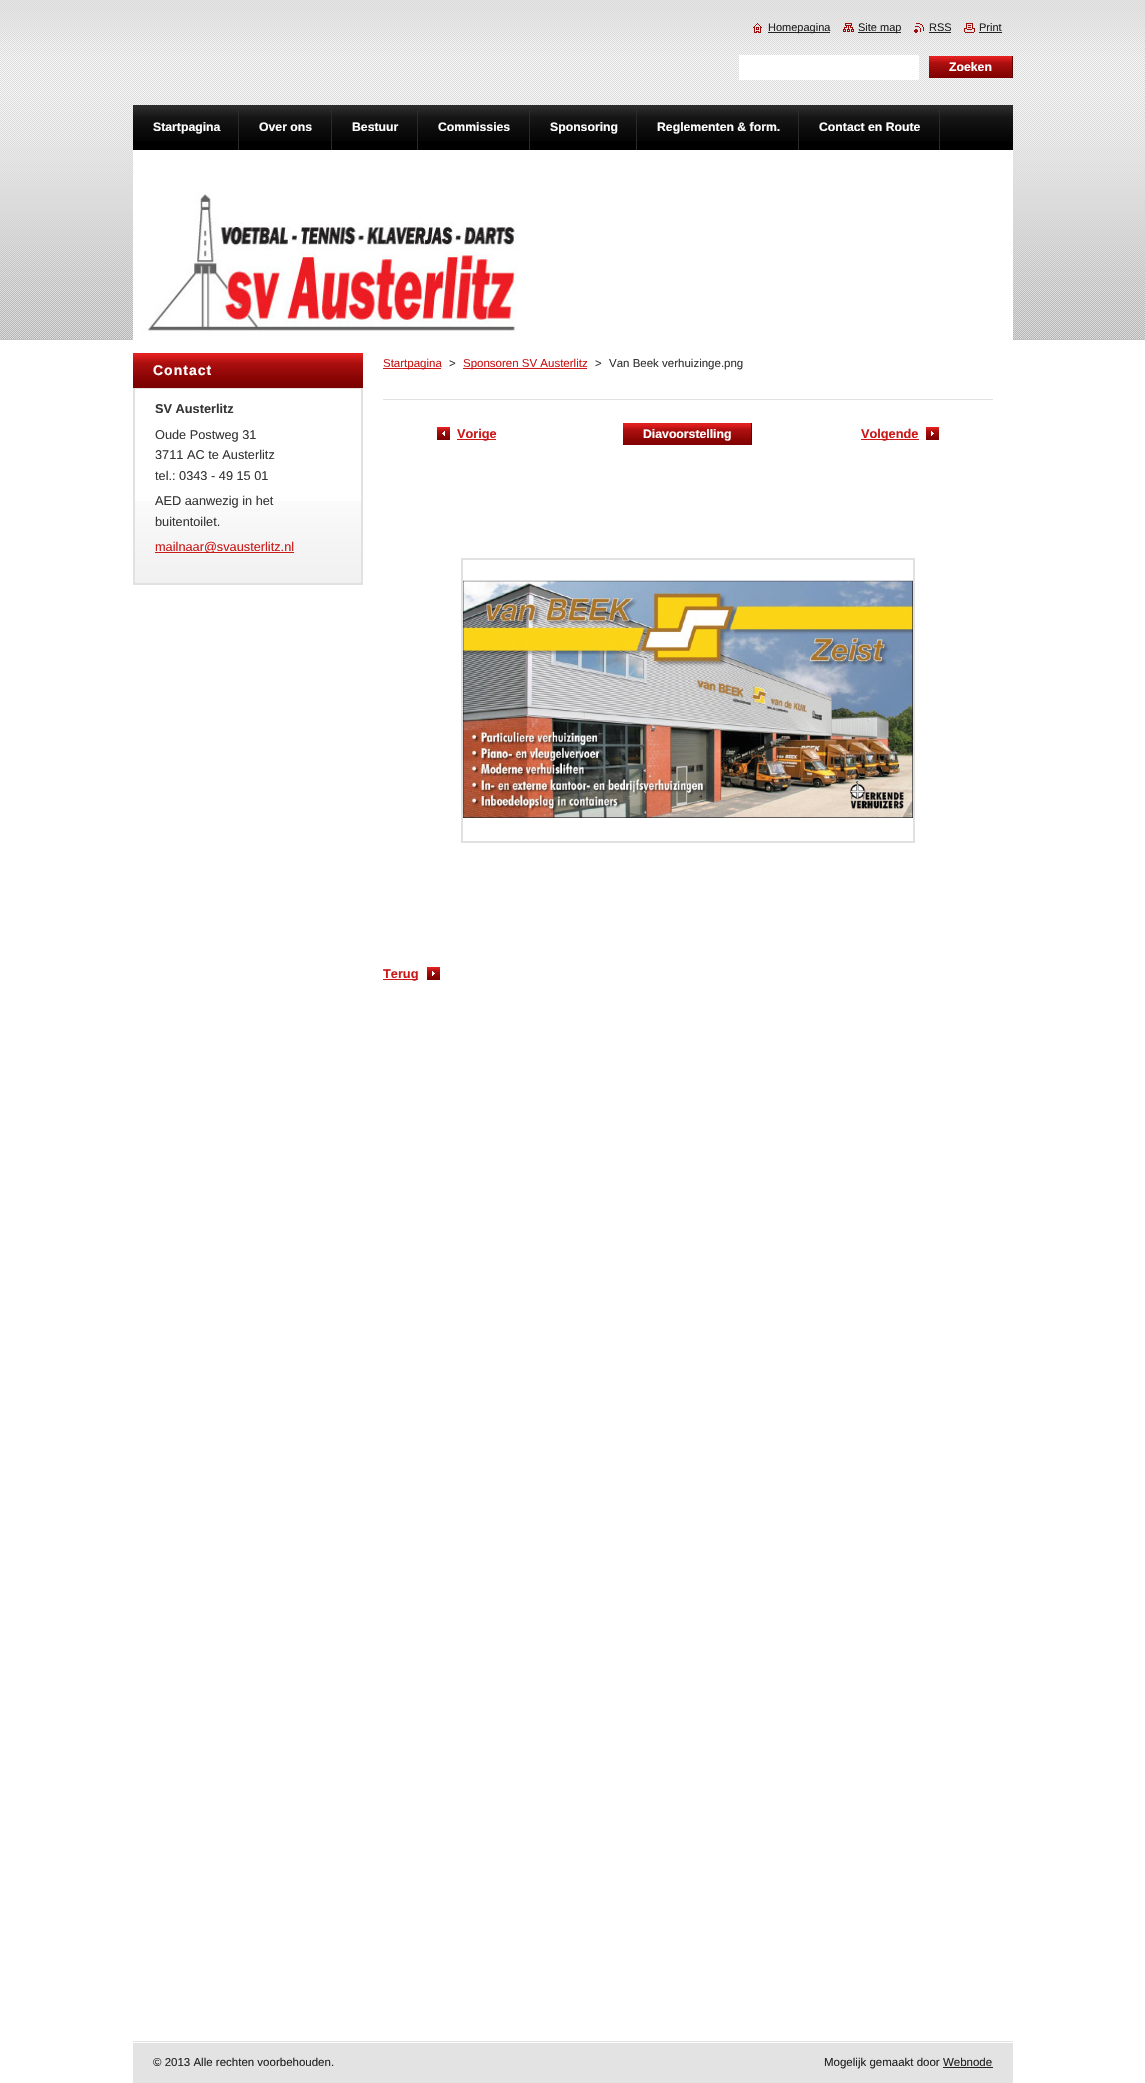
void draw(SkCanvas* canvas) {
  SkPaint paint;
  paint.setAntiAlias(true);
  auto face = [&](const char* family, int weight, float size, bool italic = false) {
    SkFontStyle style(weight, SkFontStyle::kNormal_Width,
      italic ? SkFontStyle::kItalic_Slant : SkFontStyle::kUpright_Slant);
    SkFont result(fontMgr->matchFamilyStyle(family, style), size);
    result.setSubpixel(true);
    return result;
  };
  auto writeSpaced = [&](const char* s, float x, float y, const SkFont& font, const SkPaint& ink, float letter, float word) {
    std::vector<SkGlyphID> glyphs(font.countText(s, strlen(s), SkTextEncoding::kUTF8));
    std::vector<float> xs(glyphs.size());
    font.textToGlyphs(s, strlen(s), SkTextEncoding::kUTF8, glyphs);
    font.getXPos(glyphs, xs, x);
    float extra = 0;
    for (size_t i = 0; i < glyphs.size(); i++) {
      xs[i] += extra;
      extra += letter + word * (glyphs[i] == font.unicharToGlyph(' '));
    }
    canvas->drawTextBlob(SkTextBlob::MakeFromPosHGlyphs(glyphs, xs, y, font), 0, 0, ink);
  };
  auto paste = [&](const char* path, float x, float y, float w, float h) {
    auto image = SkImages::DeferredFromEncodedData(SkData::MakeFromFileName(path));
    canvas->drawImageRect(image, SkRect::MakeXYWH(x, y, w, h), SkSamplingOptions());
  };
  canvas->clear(0xffffffff);
  paste("img/1.png", 0, 0, 1145, 340);
  paste("img/2.png", 753, 23, 9, 10);
  paint.setColor(0xff242424);
  canvas->drawRect(SkRect::MakeXYWH(768, 32, 62, 1), paint);
  paste("img/3.png", 843, 23, 11, 9);
  canvas->drawRect(SkRect::MakeXYWH(858, 32, 43, 1), paint);
  paste("img/4.png", 914, 23, 10, 10);
  canvas->drawRect(SkRect::MakeXYWH(929, 32, 22, 1), paint);
  paste("img/5.png", 964, 23, 11, 10);
  {
    const struct { float x, y, w, h; SkColor color; } items[] = {
      {979, 32, 23, 1, 0xff242424},
      {739, 55, 180, 25, 0xffffffff},
      {929, 56, 83, 1, 0xffe52020},
    };
    for (auto [x, y, w, h, color] : items) {
      paint.setColor(color);
      canvas->drawRect(SkRect::MakeXYWH(x, y, w, h), paint);
    }
  }
  paste("img/6.png", 929, 57, 83, 21);
  paint.setColor(0xff610303);
  canvas->drawRect(SkRect::MakeXYWH(1012, 56, 1, 22), paint);
  paint.setColor(0xff000000);
  canvas->drawRect(SkRect::MakeXYWH(133, 141, 880, 9), paint);
  paste("img/7.png", 133, 105, 880, 36);
  {
    const struct { float x, y, w, h; SkColor color; } items[] = {
      {238, 110, 1, 40, 0xff2a2a2a},
      {331, 110, 1, 40, 0xff2a2a2a},
      {417, 110, 1, 40, 0xff2a2a2a},
      {529, 110, 1, 40, 0xff2a2a2a},
      {636, 110, 1, 40, 0xff2a2a2a},
      {798, 110, 1, 40, 0xff2a2a2a},
      {939, 110, 1, 40, 0xff2a2a2a},
    };
    for (auto [x, y, w, h, color] : items) {
      paint.setColor(color);
      canvas->drawRect(SkRect::MakeXYWH(x, y, w, h), paint);
    }
  }
  paste("img/8.png", 133, 150, 880, 190);
  paste("img/9.png", 135, 501, 226, 82);
  paint.setColor(0xffe52020);
  canvas->drawRect(SkRect::MakeXYWH(133, 353, 230, 2), paint);
  paste("img/10.png", 133, 355, 230, 33);
  {
    const struct { float x, y, w, h; SkColor color; } items[] = {
      {133, 388, 230, 1, 0xffe1e1e1},
      {361, 389, 2, 196, 0xffe1e1e1},
      {133, 583, 230, 2, 0xffe1e1e1},
      {133, 389, 2, 196, 0xffe1e1e1},
      {155, 552, 139, 1, 0xffca1919},
      {383, 368, 58, 1, 0xffca1919},
      {463, 368, 124, 1, 0xffca1919},
      {383, 399, 610, 1, 0xffe1e1e1},
    };
    for (auto [x, y, w, h, color] : items) {
      paint.setColor(color);
      canvas->drawRect(SkRect::MakeXYWH(x, y, w, h), paint);
    }
  }
  paste("img/11.png", 437, 427, 13, 13);
  paint.setColor(0xffca1919);
  canvas->drawRect(SkRect::MakeXYWH(457, 439, 39, 1), paint);
  paste("img/12.png", 623, 424, 128, 21);
  paint.setColor(0xffe52020);
  canvas->drawRect(SkRect::MakeXYWH(623, 423, 128, 1), paint);
  paint.setColor(0xff610303);
  canvas->drawRect(SkRect::MakeXYWH(751, 423, 1, 22), paint);
  paste("img/13.png", 926, 427, 13, 13);
  paint.setColor(0xffca1919);
  canvas->drawRect(SkRect::MakeXYWH(861, 439, 58, 1), paint);
  paint.setStroke(true);
  paint.setStrokeWidth(2);
  paint.setColor(0xffe1e1e1);
  canvas->drawRect(SkRect::MakeXYWH(462, 559, 452, 283), paint);
  paste("img/14.png", 463, 580, 450, 238);
  paste("img/13.png", 427, 967, 13, 13);
  paint.setStroke(false);
  {
    const struct { float x, y, w, h; SkColor color; } items[] = {
      {383, 979, 35, 1, 0xffca1919},
      {133, 2041, 880, 42, 0xffe3e3e3},
      {133, 2042, 880, 1, 0xffffffff},
      {943, 2067, 50, 1, 0xff242424},
    };
    for (auto [x, y, w, h, color] : items) {
      paint.setColor(color);
      canvas->drawRect(SkRect::MakeXYWH(x, y, w, h), paint);
    }
  }
  auto f0 = face("Liberation Sans", 400, 11);
  {
    const struct { const char* s; float x, y; } items[] = {
      {"Homepagina", 768, 31},
      {"Site map", 858, 31},
      {"RSS", 929, 31},
      {"Print", 979, 31},
    };
    for (auto [s, x, y] : items) {
      canvas->drawString(s, x, y, f0, paint);
    }
  }
  auto f1 = face("Liberation Sans", 700, 12.25f);
  paint.setColor(0xffffffff);
  {
    const struct { const char* s; float x, y; } items[] = {
      {"Zoeken", 949, 71},
      {"Startpagina", 153, 131},
      {"Over ons", 259, 131},
      {"Bestuur", 352, 131},
      {"Commissies", 438, 131},
      {"Sponsoring", 550, 131},
      {"Reglementen & form.", 657, 131},
      {"Contact en Route", 819, 131},
    };
    for (auto [s, x, y] : items) {
      canvas->drawString(s, x, y, f1, paint);
    }
  }
  auto f2 = face("Liberation Sans", 700, 14);
  writeSpaced("Contact", 153, 375, f2, paint, 1, 0);
  auto f3 = face("Liberation Sans", 700, 12.75f);
  paint.setColor(0xff363636);
  canvas->drawString("SV Austerlitz", 155, 413, f3, paint);
  auto f4 = face("Liberation Sans", 400, 12.75f);
  {
    const struct { const char* s; float x, y; } items[] = {
      {"Oude Postweg 31", 155, 439},
      {"3711 AC te Austerlitz", 155, 459},
      {"tel.: 0343 - 49 15 01", 155, 480},
      {"AED aanwezig in het", 155, 505},
      {"buitentoilet.", 155, 526},
    };
    for (auto [s, x, y] : items) {
      canvas->drawString(s, x, y, f4, paint);
    }
  }
  paint.setColor(0xffca1919);
  canvas->drawString("mailnaar@svausterlitz.nl", 155, 551, f4, paint);
  auto f5 = face("Liberation Sans", 400, 11.5f);
  canvas->drawString("Startpagina", 383, 367, f5, paint);
  paint.setColor(0xff363636);
  canvas->drawString(">", 449, 367, f5, paint);
  paint.setColor(0xffca1919);
  canvas->drawString("Sponsoren SV Austerlitz", 463, 367, f5, paint);
  paint.setColor(0xff363636);
  canvas->drawString(">", 595, 367, f5, paint);
  canvas->drawString("Van Beek verhuizinge.png", 609, 367, f5, paint);
  paint.setColor(0xffca1919);
  canvas->drawString("Vorige", 457, 438, f3, paint);
  paint.setColor(0xffffffff);
  canvas->drawString("Diavoorstelling", 643, 438, f1, paint);
  paint.setColor(0xffca1919);
  canvas->drawString("Volgende", 861, 438, f3, paint);
  canvas->drawString("Terug", 383, 978, f3, paint);
  paint.setColor(0xff242424);
  canvas->drawString("© 2013 Alle rechten voorbehouden.", 153, 2066, f5, paint);
  canvas->drawString("Mogelijk gemaakt door Webnode", 824, 2066, f5, paint);
}
